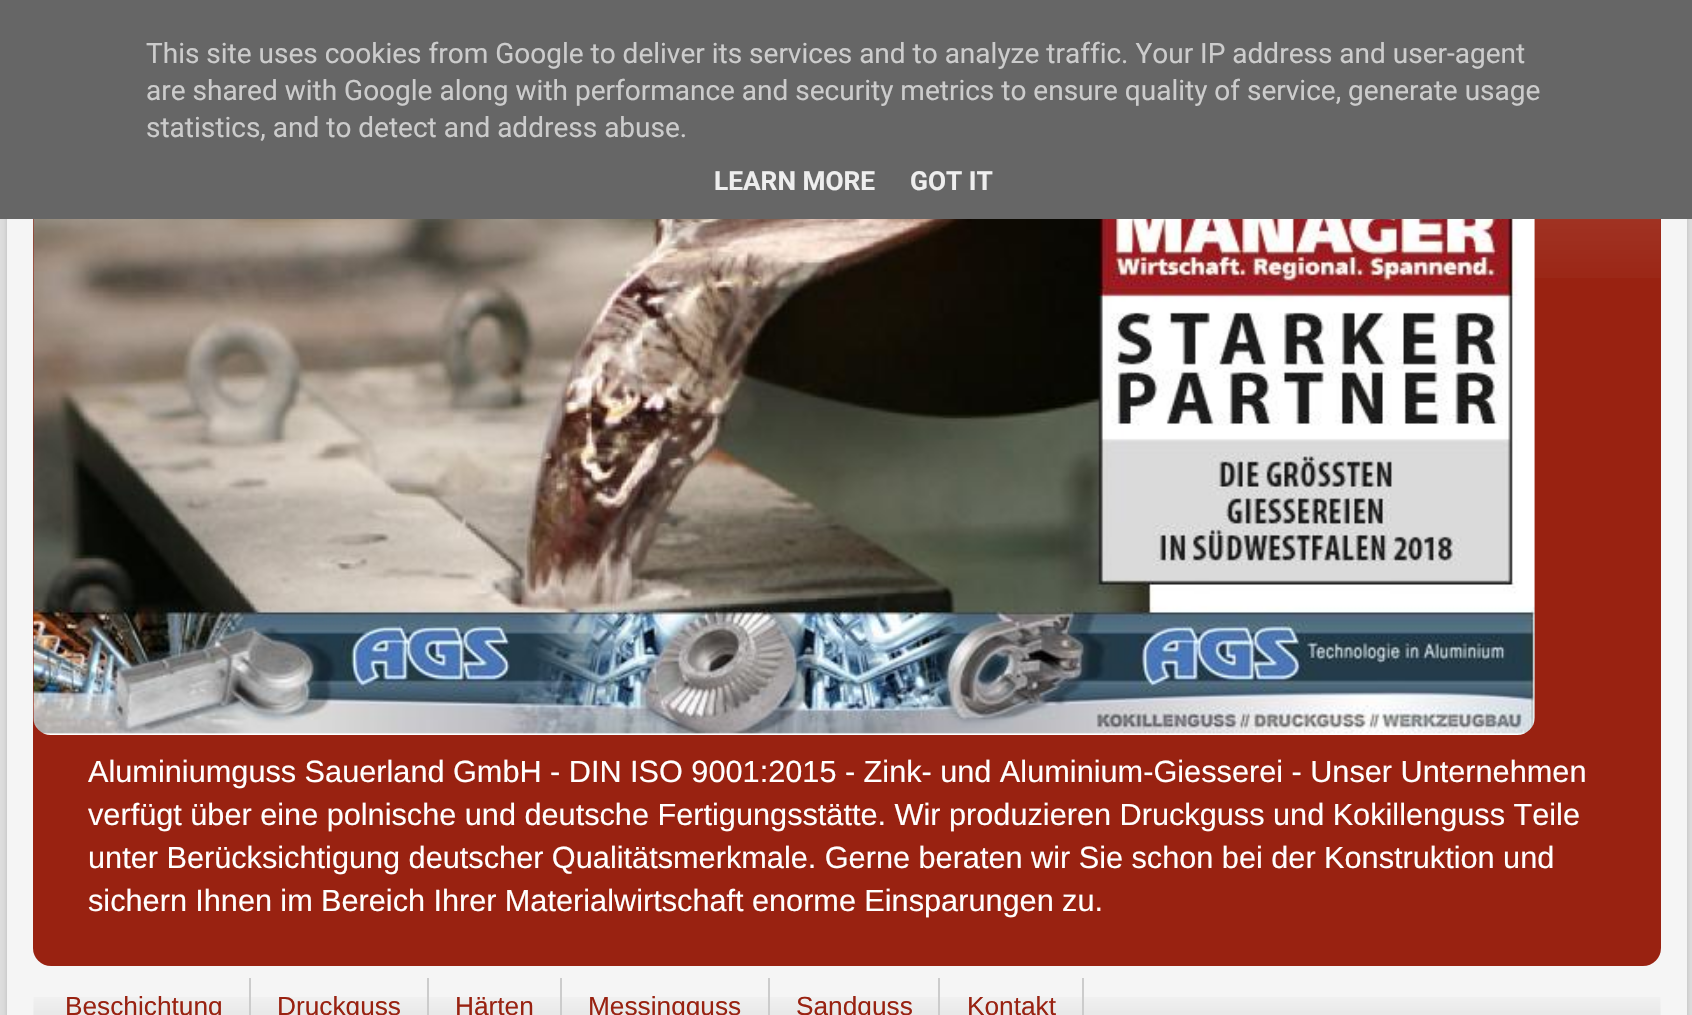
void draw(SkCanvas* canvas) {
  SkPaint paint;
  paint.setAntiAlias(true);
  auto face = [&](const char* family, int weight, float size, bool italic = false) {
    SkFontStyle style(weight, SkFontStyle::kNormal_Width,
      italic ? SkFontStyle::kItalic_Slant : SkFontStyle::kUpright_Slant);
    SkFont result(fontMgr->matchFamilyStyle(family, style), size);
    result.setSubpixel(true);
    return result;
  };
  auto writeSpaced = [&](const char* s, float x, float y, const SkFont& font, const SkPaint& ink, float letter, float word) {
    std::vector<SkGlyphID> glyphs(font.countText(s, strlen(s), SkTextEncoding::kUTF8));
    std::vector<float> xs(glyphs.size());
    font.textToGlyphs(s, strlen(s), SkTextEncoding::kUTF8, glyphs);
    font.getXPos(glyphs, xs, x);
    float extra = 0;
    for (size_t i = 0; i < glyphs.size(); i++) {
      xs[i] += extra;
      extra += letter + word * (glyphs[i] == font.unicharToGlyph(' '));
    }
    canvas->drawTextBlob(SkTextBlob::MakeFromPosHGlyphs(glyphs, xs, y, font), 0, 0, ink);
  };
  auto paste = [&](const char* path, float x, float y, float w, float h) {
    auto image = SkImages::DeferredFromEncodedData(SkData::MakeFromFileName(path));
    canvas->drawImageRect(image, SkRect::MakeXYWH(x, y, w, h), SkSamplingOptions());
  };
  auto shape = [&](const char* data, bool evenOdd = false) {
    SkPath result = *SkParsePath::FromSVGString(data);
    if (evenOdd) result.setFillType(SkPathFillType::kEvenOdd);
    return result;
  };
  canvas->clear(0xffdddddd);
  canvas->save();
  canvas->clipPath(shape("M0 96H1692V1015H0ZM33 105H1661C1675.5 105 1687 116.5 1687 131V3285C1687 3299.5 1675.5 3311 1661 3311H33C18.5 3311 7 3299.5 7 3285V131C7 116.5 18.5 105 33 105Z", true), true);
  paint.setColor(0x26000000);
  paint.setMaskFilter(SkMaskFilter::MakeBlur(kNormal_SkBlurStyle, 2.5f));
  canvas->drawRoundRect(SkRect::MakeXYWH(7, 105, 1680, 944), 26, 26, paint);
  paint.setMaskFilter(nullptr);
  canvas->restore();
  paste("img/1.png", 7, 219, 1680, 796);
  paint.setColor(0xff992211);
  canvas->drawRoundRect(SkRect::MakeXYWH(33, 131, 1628, 835), 18, 18, paint);
  paint.setColor(0xff666666);
  canvas->drawRect(SkRect::MakeXYWH(0, 0, 1692, 219), paint);
  paste("img/2.png", 33, 219, 1628, 59);
  paste("img/3.png", 33, 219, 1502, 516);
  paste("img/4.png", 33, 997, 1628, 18);
  {
    const struct { float x, y, w, h; SkColor color; } items[] = {
      {249, 978, 2, 37, 0xffcccccc},
      {427, 978, 2, 37, 0xffcccccc},
      {560, 978, 2, 37, 0xffcccccc},
      {768, 978, 2, 37, 0xffcccccc},
      {938, 978, 2, 37, 0xffcccccc},
      {1082, 978, 2, 37, 0xffcccccc},
    };
    for (auto [x, y, w, h, color] : items) {
      paint.setColor(color);
      canvas->drawRect(SkRect::MakeXYWH(x, y, w, h), paint);
    }
  }
  auto f0 = face("Roboto", 400, 28);
  {
    const struct { const char* s; float x, y; } items[] = {
      {"This site uses cookies from Google to deliver its services and to analyze traffic. Your IP address and user-agent", 146, 63},
      {"are shared with Google along with performance and security metrics to ensure quality of service, generate usage", 146, 100},
      {"statistics, and to detect and address abuse.", 146, 137},
    };
    for (auto [s, x, y] : items) {
      canvas->drawString(s, x, y, f0, paint);
    }
  }
  auto f1 = face("Roboto", 700, 26.25f);
  paint.setColor(0xffeeeeee);
  canvas->drawString("LEARN MORE", 714, 190, f1, paint);
  canvas->drawString("GOT IT", 910, 190, f1, paint);
  auto f2 = face("Liberation Sans", 400, 30.7f);
  paint.setColor(0xffffffff);
  {
    const struct { const char* s; float x, y; } items[] = {
      {"Aluminiumguss Sauerland GmbH - DIN ISO 9001:2015 - Zink- und Aluminium-Giesserei - Unser Unternehmen", 88, 782},
      {"verfügt über eine polnische und deutsche Fertigungsstätte. Wir produzieren Druckguss und Kokillenguss Teile", 88, 825},
      {"unter Berücksichtigung deutscher Qualitätsmerkmale. Gerne beraten wir Sie schon bei der Konstruktion und", 88, 868},
    };
    for (auto [s, x, y] : items) {
      writeSpaced(s, x, y, f2, paint, 0, -0.1f);
    }
  }
  writeSpaced("sichern Ihnen im Bereich Ihrer Materialwirtschaft enorme Einsparungen zu.", 88, 911, f2, paint, 0, -0.25f);
  auto f3 = face("Liberation Sans", 400, 26.25f);
  paint.setColor(0xff992211);
  {
    const struct { const char* s; float x, y; } items[] = {
      {"Beschichtung", 65, 1015},
      {"Druckguss", 277, 1015},
      {"Härten", 455, 1015},
      {"Messingguss", 588, 1015},
      {"Sandguss", 796, 1015},
      {"Kontakt", 967, 1015},
    };
    for (auto [s, x, y] : items) {
      canvas->drawString(s, x, y, f3, paint);
    }
  }
}
